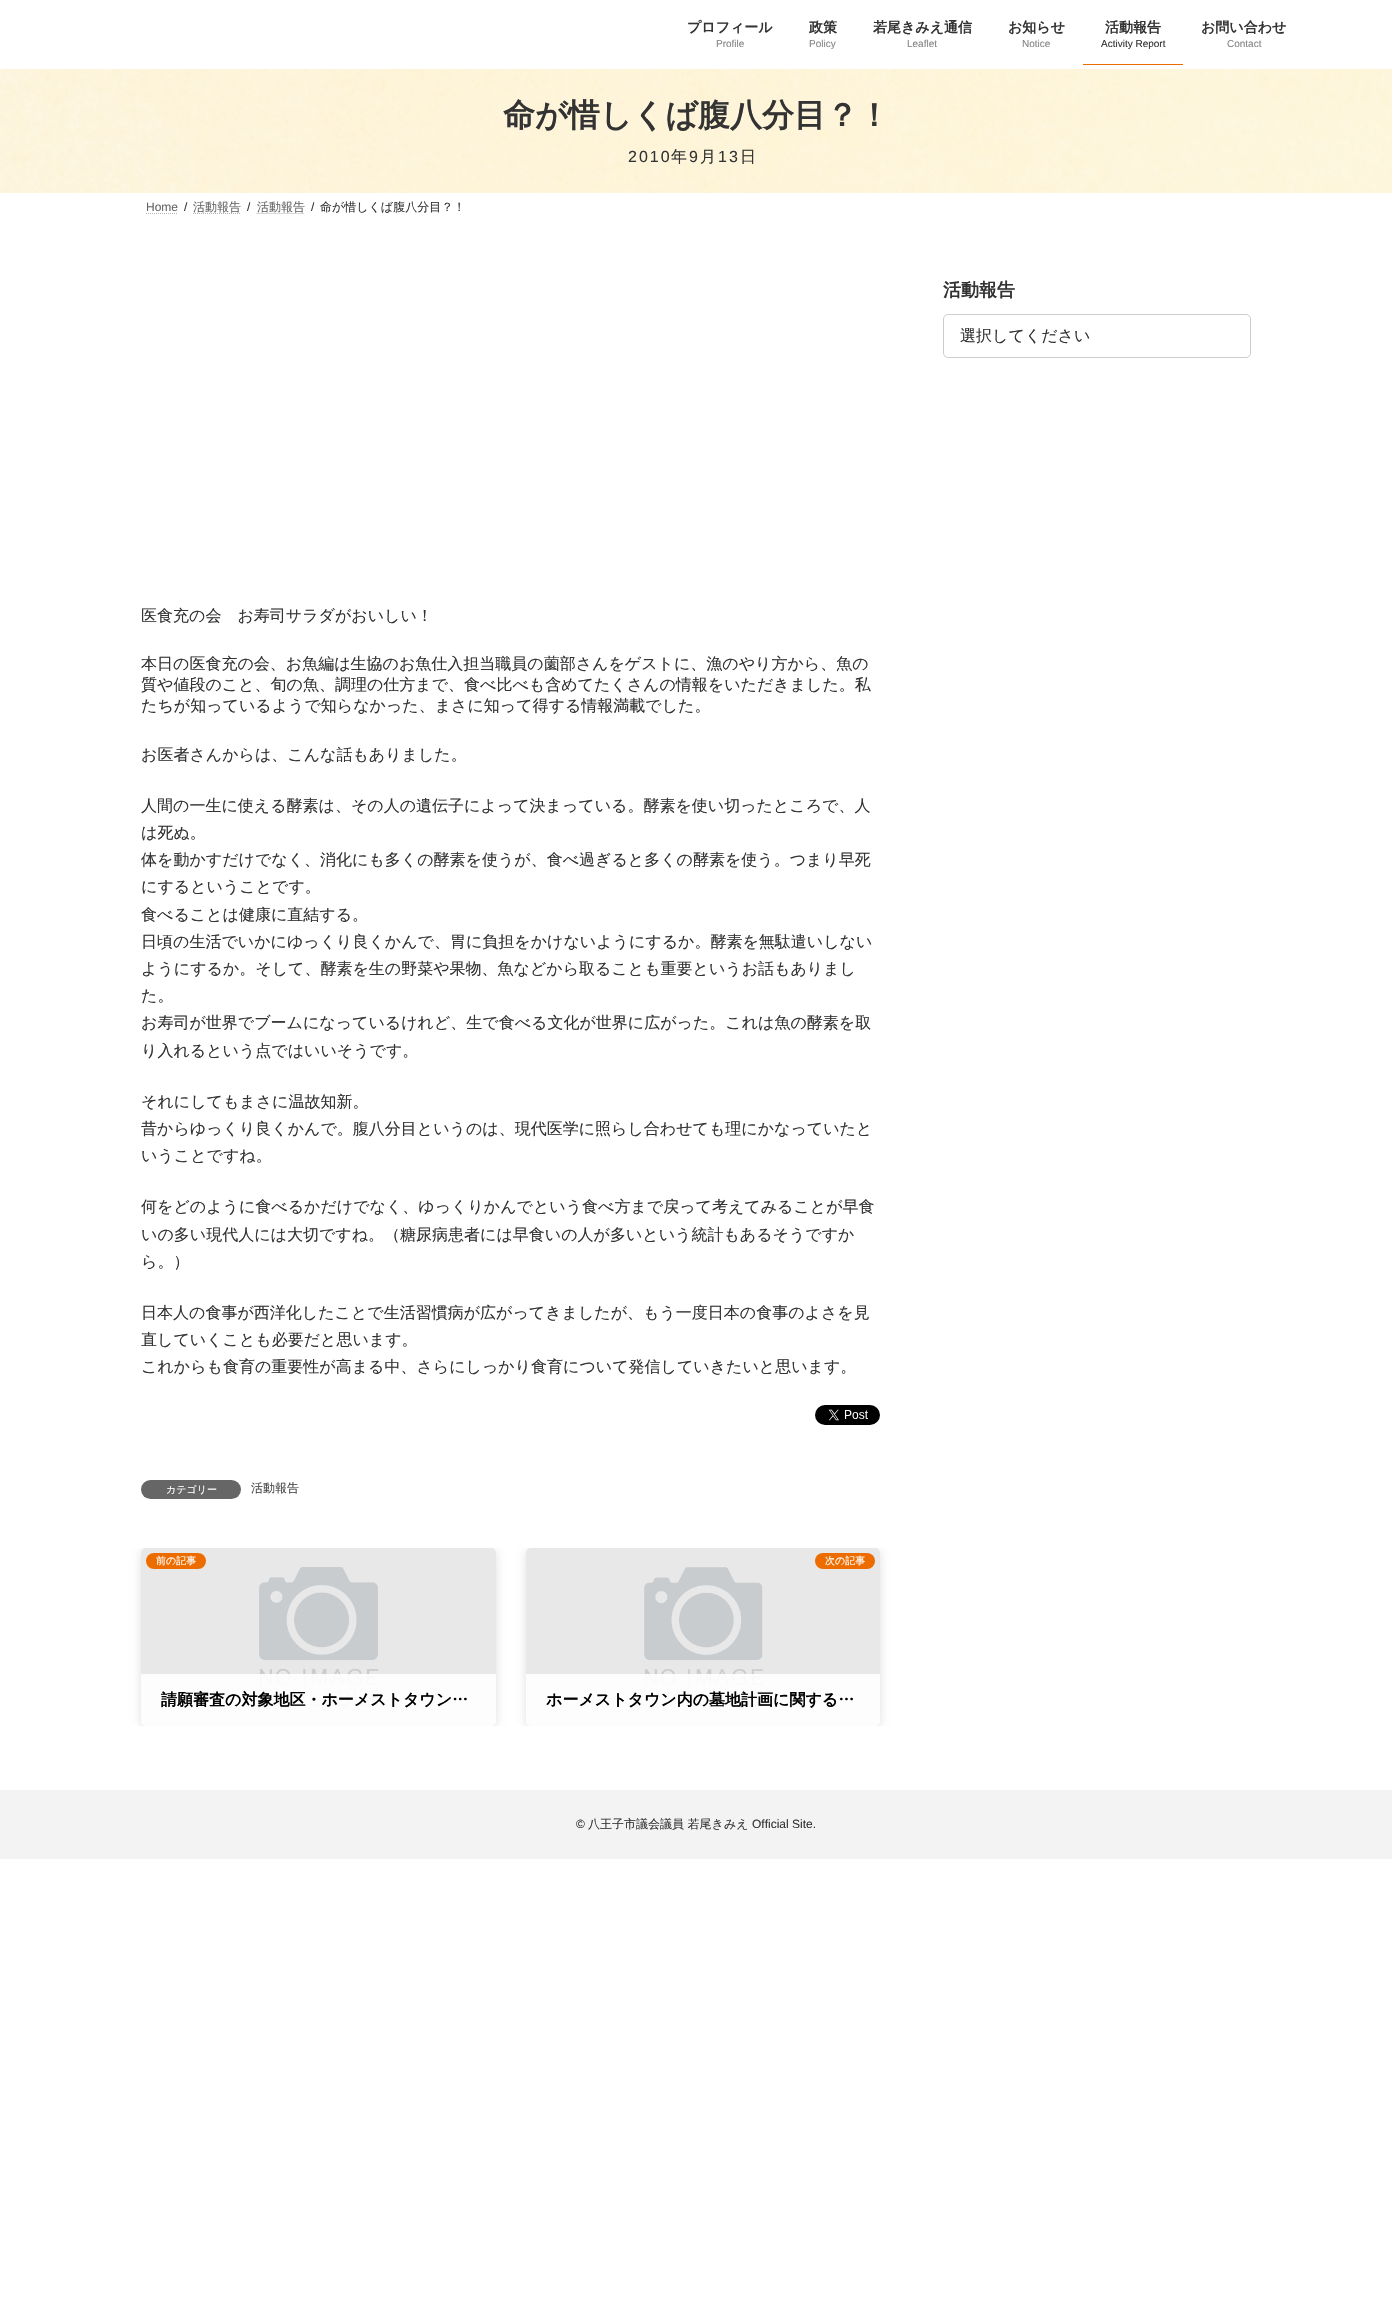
void draw(SkCanvas* canvas) {
  SkPaint paint;
  paint.setAntiAlias(true);
  auto face = [&](const char* family, int weight, float size, bool italic = false) {
    SkFontStyle style(weight, SkFontStyle::kNormal_Width,
      italic ? SkFontStyle::kItalic_Slant : SkFontStyle::kUpright_Slant);
    SkFont result(fontMgr->matchFamilyStyle(family, style), size);
    result.setSubpixel(true);
    return result;
  };
  auto writeSpaced = [&](const char* s, float x, float y, const SkFont& font, const SkPaint& ink, float letter, float word) {
    std::vector<SkGlyphID> glyphs(font.countText(s, strlen(s), SkTextEncoding::kUTF8));
    std::vector<float> xs(glyphs.size());
    font.textToGlyphs(s, strlen(s), SkTextEncoding::kUTF8, glyphs);
    font.getXPos(glyphs, xs, x);
    float extra = 0;
    for (size_t i = 0; i < glyphs.size(); i++) {
      xs[i] += extra;
      extra += letter + word * (glyphs[i] == font.unicharToGlyph(' '));
    }
    canvas->drawTextBlob(SkTextBlob::MakeFromPosHGlyphs(glyphs, xs, y, font), 0, 0, ink);
  };
  auto paste = [&](const char* path, float x, float y, float w, float h) {
    auto image = SkImages::DeferredFromEncodedData(SkData::MakeFromFileName(path));
    canvas->drawImageRect(image, SkRect::MakeXYWH(x, y, w, h), SkSamplingOptions());
  };
  auto shape = [&](const char* data, bool evenOdd = false) {
    SkPath result = *SkParsePath::FromSVGString(data);
    if (evenOdd) result.setFillType(SkPathFillType::kEvenOdd);
    return result;
  };
  canvas->clear(0xffffffff);
  paint.setColor(0xffed6c00);
  canvas->drawRect(SkRect::MakeXYWH(1083, 64, 100, 1), paint);
  paste("img/1.png", 0, 69, 1392, 124);
  paint.setStroke(true);
  paint.setStrokeWidth(1);
  paint.setColor(0xffb3b3b3);
  paint.setPathEffect(SkDashPathEffect::Make({{1, 1}}, 0));
  canvas->drawPath(shape("M146 213.5H178"), paint);
  paint.setPathEffect(nullptr);
  paint.setPathEffect(SkDashPathEffect::Make({{1, 1}}, 0));
  canvas->drawPath(shape("M193 213.5H241"), paint);
  paint.setPathEffect(nullptr);
  paint.setPathEffect(SkDashPathEffect::Make({{1, 1}}, 0));
  canvas->drawPath(shape("M256.5 213.5H304.5"), paint);
  paint.setPathEffect(nullptr);
  paint.setColor(0xffcccccc);
  canvas->drawRoundRect(SkRect::MakeXYWH(943.5f, 314.5f, 307, 43), 4.5f, 4.5f, paint);
  paste("img/2.png", 815, 1405, 65, 20);
  paint.setStroke(false);
  paint.setColor(0xff666666);
  canvas->drawRoundRect(SkRect::MakeXYWH(141, 1480, 100, 19), 9.5f, 9.5f, paint);
  canvas->save();
  canvas->clipRect(SkRect::MakeXYWH(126, 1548, 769, 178));
  paint.setColor(0x1f000000);
  paint.setMaskFilter(SkMaskFilter::MakeBlur(kNormal_SkBlurStyle, 5));
  canvas->drawRoundRect(SkRect::MakeXYWH(141, 1550, 355, 178), 5, 5, paint);
  paint.setMaskFilter(nullptr);
  canvas->restore();
  paste("img/3.png", 141, 1548, 355, 178);
  canvas->save();
  canvas->clipPath(shape("M146 1548H491C494 1548 496 1550 496 1553V1721C496 1724 494 1726 491 1726H146C143 1726 141 1724 141 1721V1553C141 1550 143 1548 146 1548Z"), true);
  paint.setColor(0xffe5e5e5);
  canvas->drawRect(SkRect::MakeXYWH(141, 1725, 355, 1), paint);
  canvas->restore();
  paint.setColor(0xffed6c00);
  canvas->drawRoundRect(SkRect::MakeXYWH(146, 1553, 60, 16), 8, 8, paint);
  paint.setColor(0xe6ffffff);
  canvas->drawPath(shape("M141 1674H496V1721C496 1724 494 1726 491 1726H146C143 1726 141 1724 141 1721Z"), paint);
  canvas->save();
  canvas->clipRect(SkRect::MakeXYWH(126, 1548, 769, 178));
  paint.setColor(0x1f000000);
  paint.setMaskFilter(SkMaskFilter::MakeBlur(kNormal_SkBlurStyle, 5));
  canvas->drawRoundRect(SkRect::MakeXYWH(526, 1550, 354, 178), 5, 5, paint);
  paint.setMaskFilter(nullptr);
  canvas->restore();
  paste("img/4.png", 526, 1548, 354, 178);
  canvas->save();
  canvas->clipPath(shape("M531 1548H875C878 1548 880 1550 880 1553V1721C880 1724 878 1726 875 1726H531C528 1726 526 1724 526 1721V1553C526 1550 528 1548 531 1548Z"), true);
  paint.setColor(0xffe5e5e5);
  canvas->drawRect(SkRect::MakeXYWH(526, 1725, 354, 1), paint);
  canvas->restore();
  paint.setColor(0xffed6c00);
  canvas->drawRoundRect(SkRect::MakeXYWH(815, 1553, 60, 16), 8, 8, paint);
  paint.setColor(0xe6ffffff);
  canvas->drawPath(shape("M526 1674H880V1721C880 1724 878 1726 875 1726H531C528 1726 526 1724 526 1721Z"), paint);
  paint.setColor(0xfff3f3f3);
  canvas->drawRect(SkRect::MakeXYWH(0, 1790, 1392, 69), paint);
  auto f0 = face("WenQuanYi Zen Hei", 700, 14);
  paint.setColor(0xff333333);
  canvas->drawString("プロフィール", 687, 32, f0, paint);
  auto f1 = face("Liberation Sans", 400, 10);
  paint.setColor(0xff858585);
  canvas->drawString("Profile", 716, 47, f1, paint);
  paint.setColor(0xff333333);
  canvas->drawString("政策", 809, 32, f0, paint);
  paint.setColor(0xff858585);
  canvas->drawString("Policy", 809, 47, f1, paint);
  paint.setColor(0xff333333);
  canvas->drawString("若尾きみえ通信", 873, 32, f0, paint);
  paint.setColor(0xff858585);
  canvas->drawString("Leaflet", 907, 47, f1, paint);
  paint.setColor(0xff333333);
  canvas->drawString("お知らせ", 1008, 32, f0, paint);
  paint.setColor(0xff858585);
  canvas->drawString("Notice", 1022, 47, f1, paint);
  paint.setColor(0xff333333);
  canvas->drawString("活動報告", 1105, 32, f0, paint);
  canvas->drawString("Activity Report", 1101, 47, f1, paint);
  canvas->drawString("お問い合わせ", 1201, 32, f0, paint);
  paint.setColor(0xff858585);
  canvas->drawString("Contact", 1227, 47, f1, paint);
  auto f2 = face("WenQuanYi Zen Hei", 700, 32);
  paint.setColor(0xff333333);
  canvas->drawString("命が惜しくば腹八分目？！", 503, 126, f2, paint);
  auto f3 = face("Liberation Sans", 400, 16);
  writeSpaced("2010", 628, 162, f3, paint, 2, 0);
  auto f4 = face("WenQuanYi Zen Hei", 500, 16);
  writeSpaced("年", 671, 162, f4, paint, 2, 0);
  writeSpaced("9", 689, 162, f3, paint, 2, 0);
  writeSpaced("月", 700, 162, f4, paint, 2, 0);
  writeSpaced("13", 718, 162, f3, paint, 2, 0);
  writeSpaced("日", 740, 162, f4, paint, 2, 0);
  auto f5 = face("Liberation Sans", 400, 12);
  paint.setColor(0xff666666);
  canvas->drawString("Home", 146, 211, f5, paint);
  paint.setColor(0xff333333);
  canvas->drawString("/", 184, 211, f5, paint);
  auto f6 = face("WenQuanYi Zen Hei", 500, 12);
  paint.setColor(0xff666666);
  canvas->drawString("活動報告", 193, 211, f6, paint);
  paint.setColor(0xff333333);
  canvas->drawString("/", 247, 211, f5, paint);
  paint.setColor(0xff666666);
  canvas->drawString("活動報告", 257, 211, f6, paint);
  paint.setColor(0xff333333);
  canvas->drawString("/", 311, 211, f5, paint);
  canvas->drawString("命が惜しくば腹八分目？！", 320, 211, f6, paint);
  auto f7 = face("WenQuanYi Zen Hei", 700, 18);
  canvas->drawString("活動報告", 943, 296, f7, paint);
  {
    const struct { const char* s; float x, y; } items[] = {
      {"選択してください", 960, 341},
      {"医食充の会　お寿司サラダがおいしい！", 141, 621},
      {"本日の医食充の会、お魚編は生協のお魚仕入担当職員の薗部さんをゲストに、漁のやり方から、魚の", 141, 669},
      {"質や値段のこと、旬の魚、調理の仕方まで、食べ比べも含めてたくさんの情報をいただきました。私", 141, 690},
      {"たちが知っているようで知らなかった、まさに知って得する情報満載でした。", 141, 711},
      {"お医者さんからは、こんな話もありました。", 141, 760},
      {"人間の一生に使える酵素は、その人の遺伝子によって決まっている。酵素を使い切ったところで、人", 141, 811},
      {"は死ぬ。", 141, 838},
      {"体を動かすだけでなく、消化にも多くの酵素を使うが、食べ過ぎると多くの酵素を使う。つまり早死", 141, 865},
      {"にするということです。", 141, 892},
      {"食べることは健康に直結する。", 141, 920},
      {"日頃の生活でいかにゆっくり良くかんで、胃に負担をかけないようにするか。酵素を無駄遣いしない", 141, 947},
      {"ようにするか。そして、酵素を生の野菜や果物、魚などから取ることも重要というお話もありまし", 141, 974},
      {"た。", 141, 1001},
      {"お寿司が世界でブームになっているけれど、生で食べる文化が世界に広がった。これは魚の酵素を取", 141, 1028},
      {"り入れるという点ではいいそうです。", 141, 1056},
      {"それにしてもまさに温故知新。", 141, 1107},
      {"昔からゆっくり良くかんで。腹八分目というのは、現代医学に照らし合わせても理にかなっていたと", 141, 1134},
      {"いうことですね。", 141, 1161},
      {"何をどのように食べるかだけでなく、ゆっくりかんでという食べ方まで戻って考えてみることが早食", 141, 1212},
      {"いの多い現代人には大切ですね。（糖尿病患者には早食いの人が多いという統計もあるそうですか", 141, 1240},
      {"ら。）", 141, 1267},
      {"日本人の食事が西洋化したことで生活習慣病が広がってきましたが、もう一度日本の食事のよさを見", 141, 1318},
      {"直していくことも必要だと思います。", 141, 1345},
      {"これからも食育の重要性が高まる中、さらにしっかり食育について発信していきたいと思います。", 141, 1372},
    };
    for (auto [s, x, y] : items) {
      canvas->drawString(s, x, y, f4, paint);
    }
  }
  auto f8 = face("WenQuanYi Zen Hei", 500, 10);
  paint.setColor(0xffffffff);
  canvas->drawString("カテゴリー", 166, 1493, f8, paint);
  paint.setColor(0xff464646);
  canvas->drawString("活動報告", 251, 1492, f6, paint);
  paint.setColor(0xffffffff);
  canvas->drawString("前の記事", 156, 1564, f8, paint);
  auto f9 = face("WenQuanYi Zen Hei", 700, 16);
  paint.setColor(0xff000000);
  canvas->drawString("請願審査の対象地区・ホーメストタウン…", 161, 1705, f9, paint);
  paint.setColor(0xffffffff);
  canvas->drawString("次の記事", 825, 1564, f8, paint);
  paint.setColor(0xff000000);
  canvas->drawString("ホーメストタウン内の墓地計画に関する…", 546, 1705, f9, paint);
  paint.setColor(0xff333333);
  canvas->drawString("©", 576, 1828, f5, paint);
  canvas->drawString("八王子市議会議員 若尾きみえ", 588, 1828, f6, paint);
  canvas->drawString("Official Site.", 752, 1828, f5, paint);
}
